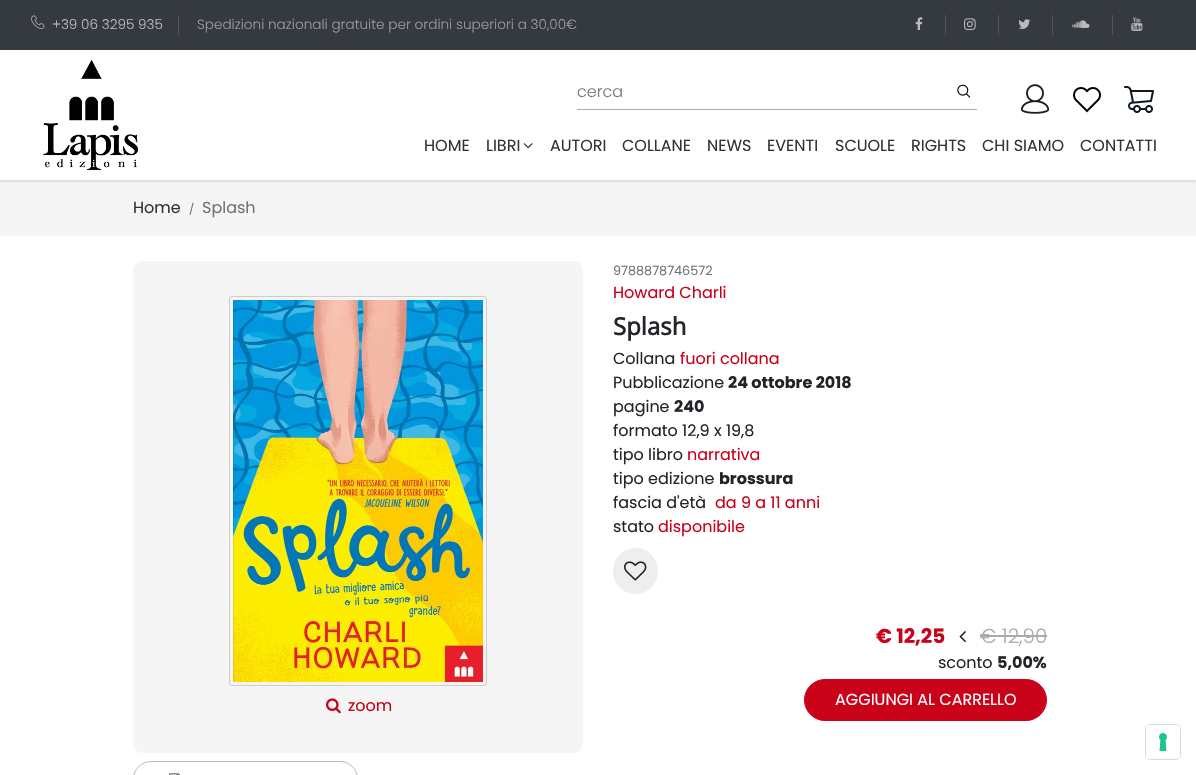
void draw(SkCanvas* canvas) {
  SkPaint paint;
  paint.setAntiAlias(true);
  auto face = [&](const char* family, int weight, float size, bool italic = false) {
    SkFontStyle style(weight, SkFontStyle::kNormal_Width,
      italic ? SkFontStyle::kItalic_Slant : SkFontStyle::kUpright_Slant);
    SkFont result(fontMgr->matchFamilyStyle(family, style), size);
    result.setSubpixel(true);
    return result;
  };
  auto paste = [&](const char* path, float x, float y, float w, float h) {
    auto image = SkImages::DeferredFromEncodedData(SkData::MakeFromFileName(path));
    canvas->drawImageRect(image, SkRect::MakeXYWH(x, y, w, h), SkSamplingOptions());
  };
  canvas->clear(0xffffffff);
  paint.setColor(0xff343a40);
  canvas->drawRect(SkRect::MakeXYWH(0, 0, 1196, 50), paint);
  paint.setColor(0xff555555);
  canvas->drawRect(SkRect::MakeXYWH(178, 15, 1, 20), paint);
  paste("img/1.png", 31, 15, 14, 14);
  canvas->drawRect(SkRect::MakeXYWH(945, 15, 1, 20), paint);
  paste("img/2.png", 915, 17, 8, 13);
  canvas->drawRect(SkRect::MakeXYWH(998, 15, 1, 20), paint);
  paste("img/3.png", 964, 18, 12, 12);
  canvas->drawRect(SkRect::MakeXYWH(1052, 15, 1, 20), paint);
  paste("img/4.png", 1018, 19, 13, 10);
  canvas->drawRect(SkRect::MakeXYWH(1112, 15, 1, 20), paint);
  paste("img/5.png", 1072, 20, 18, 8);
  paste("img/6.png", 1131, 17, 12, 14);
  paint.setColor(0xfff5f5f5);
  canvas->drawRect(SkRect::MakeXYWH(0, 180, 1196, 56), paint);
  canvas->save();
  canvas->clipRect(SkRect::MakeXYWH(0, 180, 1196, 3));
  paint.setColor(0x1a000000);
  paint.setMaskFilter(SkMaskFilter::MakeBlur(kNormal_SkBlurStyle, 1));
  canvas->drawRect(SkRect::MakeXYWH(0, 52, 1196, 130), paint);
  paint.setMaskFilter(nullptr);
  canvas->restore();
  paste("img/7.png", 43, 60, 95, 110);
  paint.setColor(0xffaaaaaa);
  canvas->drawRect(SkRect::MakeXYWH(577, 109, 400, 1), paint);
  paste("img/8.png", 957, 84, 14, 14);
  paste("img/9.png", 1020, 84, 30, 30);
  paste("img/10.png", 1073, 87, 28, 26);
  paste("img/11.png", 1124, 86, 30, 27);
  paste("img/12.png", 523, 143, 10, 6);
  paint.setColor(0xffeeeeee);
  canvas->drawRoundRect(SkRect::MakeXYWH(613, 548, 45, 46), 22.5f, 22.5f, paint);
  paste("img/13.png", 624, 561, 23, 20);
  paste("img/14.png", 959, 631, 7, 12);
  paint.setColor(0xffaaaaaa);
  canvas->drawRect(SkRect::MakeXYWH(980, 635, 67, 2), paint);
  paint.setColor(0xffc90119);
  canvas->drawRoundRect(SkRect::MakeXYWH(804.5f, 679.5f, 242, 41), 20.5f, 20.5f, paint);
  paint.setStroke(true);
  paint.setStrokeWidth(1);
  canvas->drawRoundRect(SkRect::MakeXYWH(804.5f, 679.5f, 242, 41), 20.5f, 20.5f, paint);
  paint.setStroke(false);
  paint.setColor(0xfff5f5f5);
  canvas->drawRoundRect(SkRect::MakeXYWH(133, 261, 450, 492), 10, 10, paint);
  paint.setStroke(true);
  paint.setColor(0xffcccccc);
  canvas->drawRoundRect(SkRect::MakeXYWH(229.5f, 296.5f, 257, 389), 2.5f, 2.5f, paint);
  paste("img/15.png", 233, 300, 250, 382);
  paste("img/16.png", 326, 698, 15, 16);
  paint.setColor(0xffbbbbbb);
  canvas->drawRoundRect(SkRect::MakeXYWH(133.5f, 761.5f, 224, 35), 20.5f, 20.5f, paint);
  paste("img/17.png", 169, 773, 12, 2);
  paint.setColor(0xffd9d9d9);
  canvas->drawRoundRect(SkRect::MakeXYWH(1145.5f, 724.5f, 35, 35), 4.5f, 4.5f, paint);
  paint.setStroke(false);
  paint.setColor(0xffffffff);
  canvas->drawRoundRect(SkRect::MakeXYWH(1146, 725, 34, 34), 4, 4, paint);
  paste("img/18.png", 1159, 733, 8, 18);
  auto f0 = face("Poppins", 300, 13.6f);
  paint.setColor(0xffbbbbbb);
  canvas->drawString("+39 06 3295 935", 52, 29, f0, paint);
  paint.setColor(0xff999999);
  canvas->drawString("Spedizioni nazionali gratuite per ordini superiori a 30,00€", 197, 29, f0, paint);
  auto f1 = face("Poppins", 300, 16);
  paint.setColor(0xff757575);
  canvas->drawString("cerca", 577, 97, f1, paint);
  auto f2 = face("Poppins", 400, 16);
  paint.setColor(0xff333333);
  {
    const struct { const char* s; float x, y; } items[] = {
      {"HOME", 424, 151},
      {"LIBRI", 486, 151},
      {"AUTORI", 550, 151},
      {"COLLANE", 622, 151},
      {"NEWS", 707, 151},
      {"EVENTI", 767, 151},
      {"SCUOLE", 835, 151},
      {"RIGHTS", 911, 151},
      {"CHI SIAMO", 982, 151},
      {"CONTATTI", 1080, 151},
      {"Home", 133, 213},
    };
    for (auto [s, x, y] : items) {
      canvas->drawString(s, x, y, f2, paint);
    }
  }
  auto f3 = face("Poppins", 400, 11);
  paint.setColor(0xff6c757d);
  canvas->drawString("/", 189, 213, f3, paint);
  canvas->drawString("Splash", 202, 213, f2, paint);
  auto f4 = face("Poppins", 400, 12.75f);
  canvas->drawString("9788878746572", 613, 275, f4, paint);
  paint.setColor(0xffc90119);
  canvas->drawString("Howard Charli", 613, 298, f2, paint);
  auto f5 = face("Open Sans", 700, 24);
  paint.setColor(0xff212529);
  canvas->drawString("Splash", 613, 335, f5, paint);
  canvas->drawString("Collana", 613, 364, f2, paint);
  paint.setColor(0xffc90119);
  canvas->drawString("fuori collana", 680, 364, f2, paint);
  paint.setColor(0xff212529);
  canvas->drawString("Pubblicazione", 613, 388, f2, paint);
  auto f6 = face("Poppins", 700, 16);
  canvas->drawString("24 ottobre 2018", 728, 388, f6, paint);
  canvas->drawString("pagine", 613, 412, f2, paint);
  canvas->drawString("240", 674, 412, f6, paint);
  canvas->drawString("formato 12,9 x 19,8", 613, 436, f2, paint);
  canvas->drawString("tipo libro", 613, 460, f2, paint);
  paint.setColor(0xffc90119);
  canvas->drawString("narrativa", 687, 460, f2, paint);
  paint.setColor(0xff212529);
  canvas->drawString("tipo edizione", 613, 484, f2, paint);
  canvas->drawString("brossura", 719, 484, f6, paint);
  canvas->drawString("fascia d'età", 613, 508, f2, paint);
  paint.setColor(0xffc90119);
  canvas->drawString("da 9 a 11 anni", 715, 508, f2, paint);
  paint.setColor(0xff212529);
  canvas->drawString("stato", 613, 532, f2, paint);
  paint.setColor(0xffc90119);
  canvas->drawString("disponibile", 658, 532, f2, paint);
  auto f7 = face("Poppins", 700, 20);
  canvas->drawString("€ 12,25", 876, 643, f7, paint);
  auto f8 = face("Poppins", 300, 20);
  paint.setColor(0xffaaaaaa);
  canvas->drawString("€ 12,90", 980, 643, f8, paint);
  paint.setColor(0xff212529);
  canvas->drawString("sconto", 938, 668, f2, paint);
  canvas->drawString("5,00%", 997, 668, f6, paint);
  paint.setColor(0xffffffff);
  canvas->drawString("AGGIUNGI AL CARRELLO", 835, 705, f2, paint);
  paint.setColor(0xffc90119);
  canvas->drawString("zoom", 348, 711, f2, paint);
}
